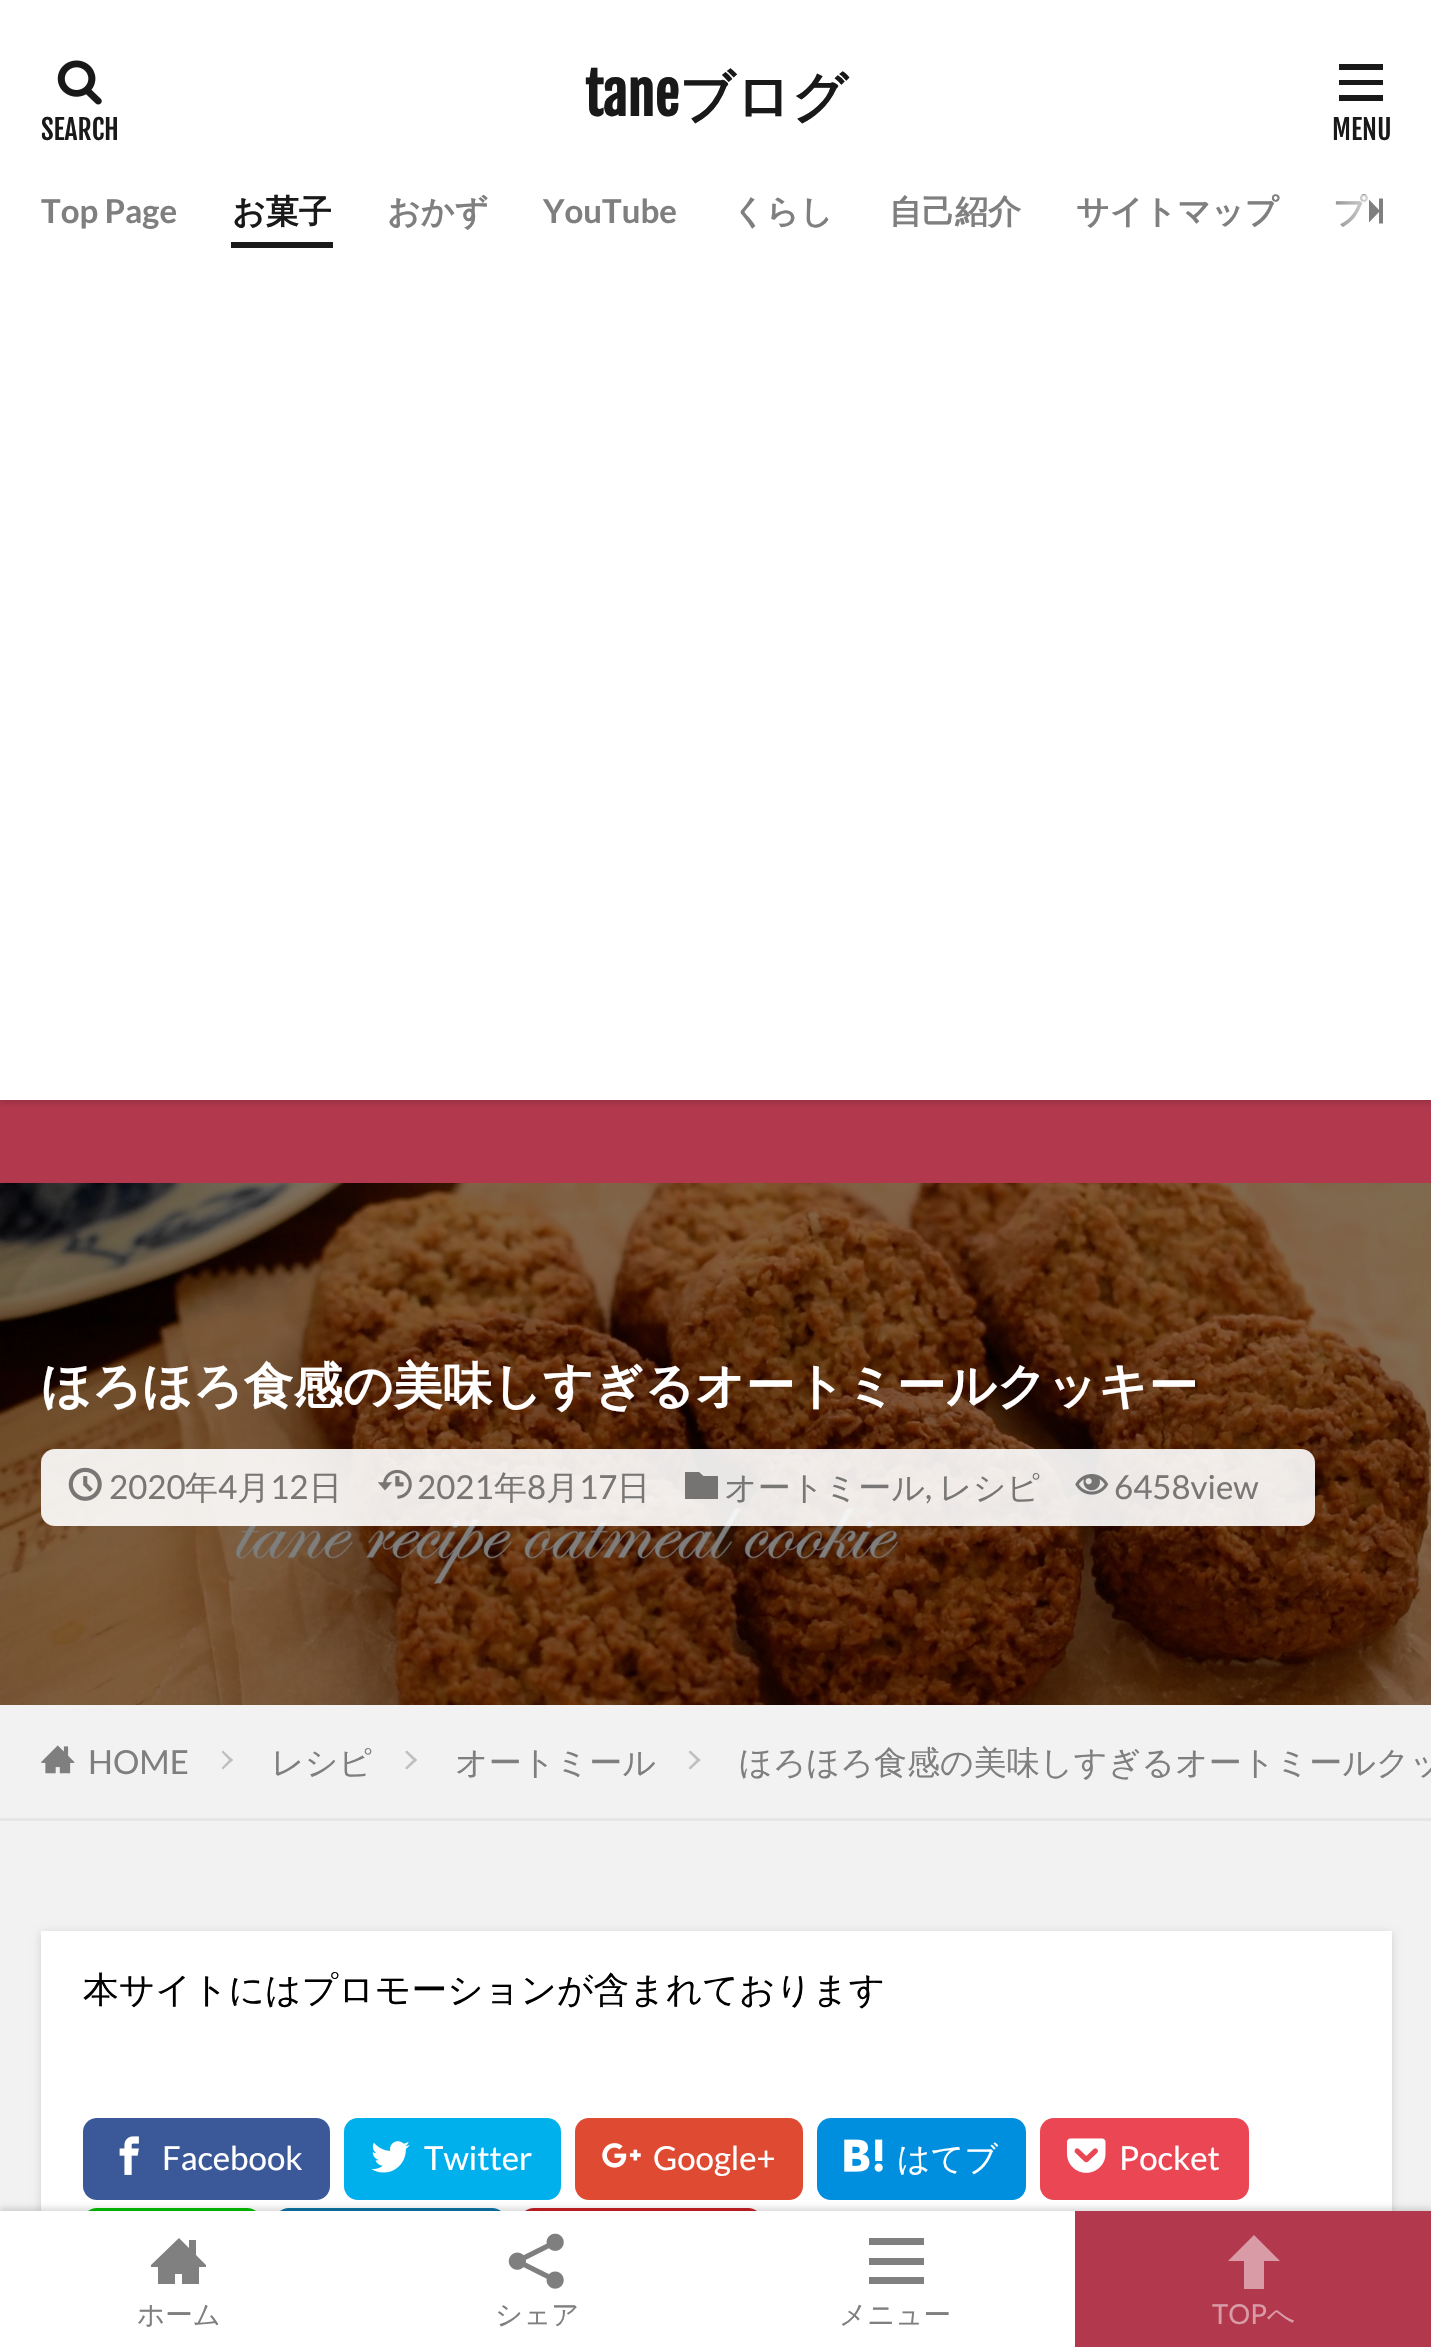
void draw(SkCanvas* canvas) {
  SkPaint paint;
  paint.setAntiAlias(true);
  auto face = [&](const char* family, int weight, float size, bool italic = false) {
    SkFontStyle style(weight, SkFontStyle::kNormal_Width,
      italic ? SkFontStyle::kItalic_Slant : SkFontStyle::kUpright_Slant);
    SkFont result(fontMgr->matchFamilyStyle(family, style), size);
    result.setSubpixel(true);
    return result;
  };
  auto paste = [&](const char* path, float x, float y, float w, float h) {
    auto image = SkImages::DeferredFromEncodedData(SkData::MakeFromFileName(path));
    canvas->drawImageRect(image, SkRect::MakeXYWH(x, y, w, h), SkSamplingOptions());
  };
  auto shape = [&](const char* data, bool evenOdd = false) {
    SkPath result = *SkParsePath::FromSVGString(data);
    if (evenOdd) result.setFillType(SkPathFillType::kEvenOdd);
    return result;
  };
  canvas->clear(0xfff2f2f2);
  paint.setColor(0xffb2384e);
  canvas->drawRect(SkRect::MakeXYWH(0, 1100, 1431, 83), paint);
  paint.setColor(0x26000000);
  paint.setMaskFilter(SkMaskFilter::MakeBlur(kNormal_SkBlurStyle, 3));
  canvas->drawRect(SkRect::MakeXYWH(0, 3, 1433, 1100), paint);
  paint.setMaskFilter(nullptr);
  paint.setColor(0xffffffff);
  canvas->drawRect(SkRect::MakeXYWH(0, 0, 1431, 1100), paint);
  paste("img/1.png", 57, 60, 45, 45);
  paint.setColor(0xff191919);
  canvas->drawPath(shape("M1339 64H1383V70H1339ZM1339 80H1383V85H1339ZM1339 95H1383V101H1339Z"), paint);
  paint.setColor(0xff1a1a1a);
  canvas->drawRect(SkRect::MakeXYWH(231, 242, 102, 6), paint);
  paint.setColor(0x80000000);
  canvas->drawPath(shape("M1383 198.5V223.5H1379V212L1369 222.5V199.5L1379 210V198.5Z"), paint);
  paste("img/2.png", 0, 1183, 1431, 522);
  paint.setColor(0xe6ffffff);
  canvas->drawRoundRect(SkRect::MakeXYWH(41, 1449, 1274, 77), 14, 14, paint);
  paste("img/3.png", 68, 1467, 34, 34);
  paste("img/4.png", 378, 1469, 34, 30);
  paint.setColor(0x80000000);
  canvas->drawPath(shape("M699 1472L703.5 1476H718V1499H685V1472Z"), paint);
  paste("img/5.png", 1075, 1474, 34, 21);
  paint.setColor(0xffe6e6e6);
  canvas->drawRect(SkRect::MakeXYWH(0, 1818, 1431, 3), paint);
  paste("img/6.png", 41, 1745, 34, 29);
  paint.setColor(0xffbfbfbf);
  canvas->drawPath(shape("M223 1750.5L233 1760L231 1762L221.5 1752Z"), paint);
  canvas->drawPath(shape("M231 1758L233 1760L223 1769.5L221.5 1768Z"), paint);
  canvas->drawPath(shape("M407 1750.5L417 1760L415 1762L405 1752Z"), paint);
  canvas->drawPath(shape("M415 1758L417 1760L407 1769.5L405 1768Z"), paint);
  canvas->drawPath(shape("M690.5 1750.5L700.5 1760L698.5 1762L688.5 1752Z"), paint);
  canvas->drawPath(shape("M698.5 1758L700.5 1760L690.5 1769.5L688.5 1768Z"), paint);
  paint.setColor(0x26000000);
  paint.setMaskFilter(SkMaskFilter::MakeBlur(kNormal_SkBlurStyle, 4));
  canvas->drawRect(SkRect::MakeXYWH(41, 1933, 1351, 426), paint);
  paint.setMaskFilter(nullptr);
  paint.setColor(0xffffffff);
  canvas->drawRect(SkRect::MakeXYWH(41, 1931, 1351, 280), paint);
  paint.setColor(0xff3b5998);
  canvas->drawRoundRect(SkRect::MakeXYWH(83, 2118, 247, 82), 14, 14, paint);
  paste("img/7.png", 119, 2136, 20, 39);
  paint.setColor(0xff00b0ed);
  canvas->drawRoundRect(SkRect::MakeXYWH(344, 2118, 217, 82), 14, 14, paint);
  paste("img/8.png", 371, 2141, 39, 32);
  paint.setColor(0xffdf4a32);
  canvas->drawRoundRect(SkRect::MakeXYWH(575, 2118, 228, 82), 14, 14, paint);
  paste("img/9.png", 602, 2143, 39, 25);
  paint.setColor(0xff008fde);
  canvas->drawRoundRect(SkRect::MakeXYWH(817, 2118, 209, 82), 14, 14, paint);
  paste("img/10.png", 844, 2139, 39, 33);
  paint.setColor(0xffeb4654);
  canvas->drawRoundRect(SkRect::MakeXYWH(1040, 2118, 209, 82), 14, 14, paint);
  paste("img/11.png", 1067, 2138, 39, 35);
  paint.setColor(0xff00c300);
  canvas->drawRoundRect(SkRect::MakeXYWH(83, 2208, 178, 83), 14, 14, paint);
  paint.setColor(0xff0e76a8);
  canvas->drawRoundRect(SkRect::MakeXYWH(275, 2208, 231, 83), 14, 14, paint);
  paint.setColor(0xffcb2027);
  canvas->drawRoundRect(SkRect::MakeXYWH(520, 2208, 242, 83), 14, 14, paint);
  paint.setColor(0x26000000);
  paint.setMaskFilter(SkMaskFilter::MakeBlur(kNormal_SkBlurStyle, 3));
  canvas->drawRect(SkRect::MakeXYWH(0, 2208, 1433, 138), paint);
  paint.setMaskFilter(nullptr);
  paint.setColor(0xffffffff);
  canvas->drawRect(SkRect::MakeXYWH(0, 2211, 1075, 136), paint);
  paint.setColor(0xff808080);
  canvas->drawPath(shape("M206 2265L196 2255V2240H189V2248L179 2238L151 2265V2267H158V2284H175V2274H182V2284H199V2267H206Z"), paint);
  paste("img/12.png", 508, 2233, 56, 56);
  canvas->drawPath(shape("M869 2238H924V2245H869ZM869 2258H924V2265H869ZM869 2277H924V2284H869Z"), paint);
  paint.setColor(0xffb2384e);
  canvas->drawRect(SkRect::MakeXYWH(1075, 2211, 356, 136), paint);
  paint.setColor(0xffd99ca7);
  canvas->drawPath(shape("M1254 2235L1228 2261H1244V2289H1264V2261H1280Z"), paint);
  auto f0 = face("Fjalla One", 700, 55);
  paint.setColor(0xff191919);
  canvas->drawString("tane", 585, 116, f0, paint);
  auto f1 = face("WenQuanYi Zen Hei", 700, 55);
  canvas->drawString("ブログ", 679, 116, f1, paint);
  auto f2 = face("Fjalla One", 400, 27.5f);
  canvas->drawString("SEARCH", 41, 140, f2, paint);
  canvas->drawString("MENU", 1332, 140, f2, paint);
  auto f3 = face("Lato", 700, 33);
  paint.setColor(0xff7f7f7f);
  canvas->drawString("Top Page", 41, 223, f3, paint);
  auto f4 = face("WenQuanYi Zen Hei", 700, 33);
  paint.setColor(0xff191919);
  canvas->drawString("お菓子", 232, 223, f4, paint);
  paint.setColor(0xff7f7f7f);
  canvas->drawString("おかず", 387, 223, f4, paint);
  canvas->drawString("YouTube", 543, 223, f3, paint);
  {
    const struct { const char* s; float x, y; } items[] = {
      {"くらし", 732, 223},
      {"自己紹介", 889, 223},
      {"サイトマップ", 1076, 223},
      {"プ", 1333, 223},
    };
    for (auto [s, x, y] : items) {
      canvas->drawString(s, x, y, f4, paint);
    }
  }
  {
    const SkColor colors[] = {0x00ffffff, 0xffffffff};
    const float stops[] = {0, 1};
    const SkPoint ends[] = {{1323, 179}, {1392, 179}};
    paint.setShader(SkGradientShader::MakeLinear(ends, colors, stops, 2, SkTileMode::kClamp));
    paint.setAlpha(255);
  }
  canvas->drawRect(SkRect::MakeXYWH(1336, 195, 32, 32), paint);
  auto f5 = face("WenQuanYi Zen Hei", 700, 49.5f);
  paint.setShader(nullptr);
  paint.setColor(0xffffffff);
  canvas->drawString("ほろほろ食感の美味しすぎるオートミールクッキー", 41, 1403, f5, paint);
  auto f6 = face("Lato", 400, 33);
  paint.setColor(0xff787775);
  canvas->drawString("2020", 109, 1499, f6, paint);
  auto f7 = face("WenQuanYi Zen Hei", 500, 33);
  canvas->drawString("年", 185, 1499, f7, paint);
  canvas->drawString("4", 218, 1499, f6, paint);
  canvas->drawString("月", 237, 1499, f7, paint);
  canvas->drawString("12", 270, 1499, f6, paint);
  canvas->drawString("日", 309, 1499, f7, paint);
  canvas->drawString("2021", 417, 1499, f6, paint);
  canvas->drawString("年", 494, 1499, f7, paint);
  canvas->drawString("8", 527, 1499, f6, paint);
  canvas->drawString("月", 546, 1499, f7, paint);
  canvas->drawString("17", 579, 1499, f6, paint);
  canvas->drawString("日", 617, 1499, f7, paint);
  canvas->drawString("オートミール", 724, 1499, f7, paint);
  canvas->drawString(",", 925, 1499, f6, paint);
  canvas->drawString("レシピ", 939, 1499, f7, paint);
  canvas->drawString("6458view", 1114, 1499, f6, paint);
  paint.setColor(0xff7f7f7f);
  canvas->drawString("HOME", 88, 1774, f6, paint);
  {
    const struct { const char* s; float x, y; } items[] = {
      {"レシピ", 271, 1774},
      {"オートミール", 455, 1774},
      {"ほろほろ食感の美味しすぎるオートミールクッ", 739, 1774},
    };
    for (auto [s, x, y] : items) {
      canvas->drawString(s, x, y, f7, paint);
    }
  }
  auto f8 = face("WenQuanYi Zen Hei", 500, 35.75f);
  paint.setColor(0xff000000);
  canvas->drawString("本サイトにはプロモーションが含まれております", 83, 2002, f8, paint);
  paint.setColor(0xffffffff);
  {
    const struct { const char* s; float x, y; } items[] = {
      {"Facebook", 162, 2170},
      {"Twitter", 424, 2170},
      {"Google+", 653, 2170},
    };
    for (auto [s, x, y] : items) {
      canvas->drawString(s, x, y, f6, paint);
    }
  }
  canvas->drawString("はてブ", 897, 2170, f7, paint);
  canvas->drawString("Pocket", 1119, 2170, f6, paint);
  auto f9 = face("WenQuanYi Zen Hei", 500, 27.5f);
  paint.setColor(0xff7f7f7f);
  {
    const struct { const char* s; float x, y; } items[] = {
      {"ホーム", 137, 2324},
      {"シェア", 495, 2324},
      {"メニュー", 839, 2324},
    };
    for (auto [s, x, y] : items) {
      canvas->drawString(s, x, y, f9, paint);
    }
  }
  auto f10 = face("Lato", 400, 27.5f);
  paint.setColor(0xffd99ca7);
  canvas->drawString("TOP", 1212, 2324, f10, paint);
  canvas->drawString("へ", 1267, 2324, f9, paint);
}
